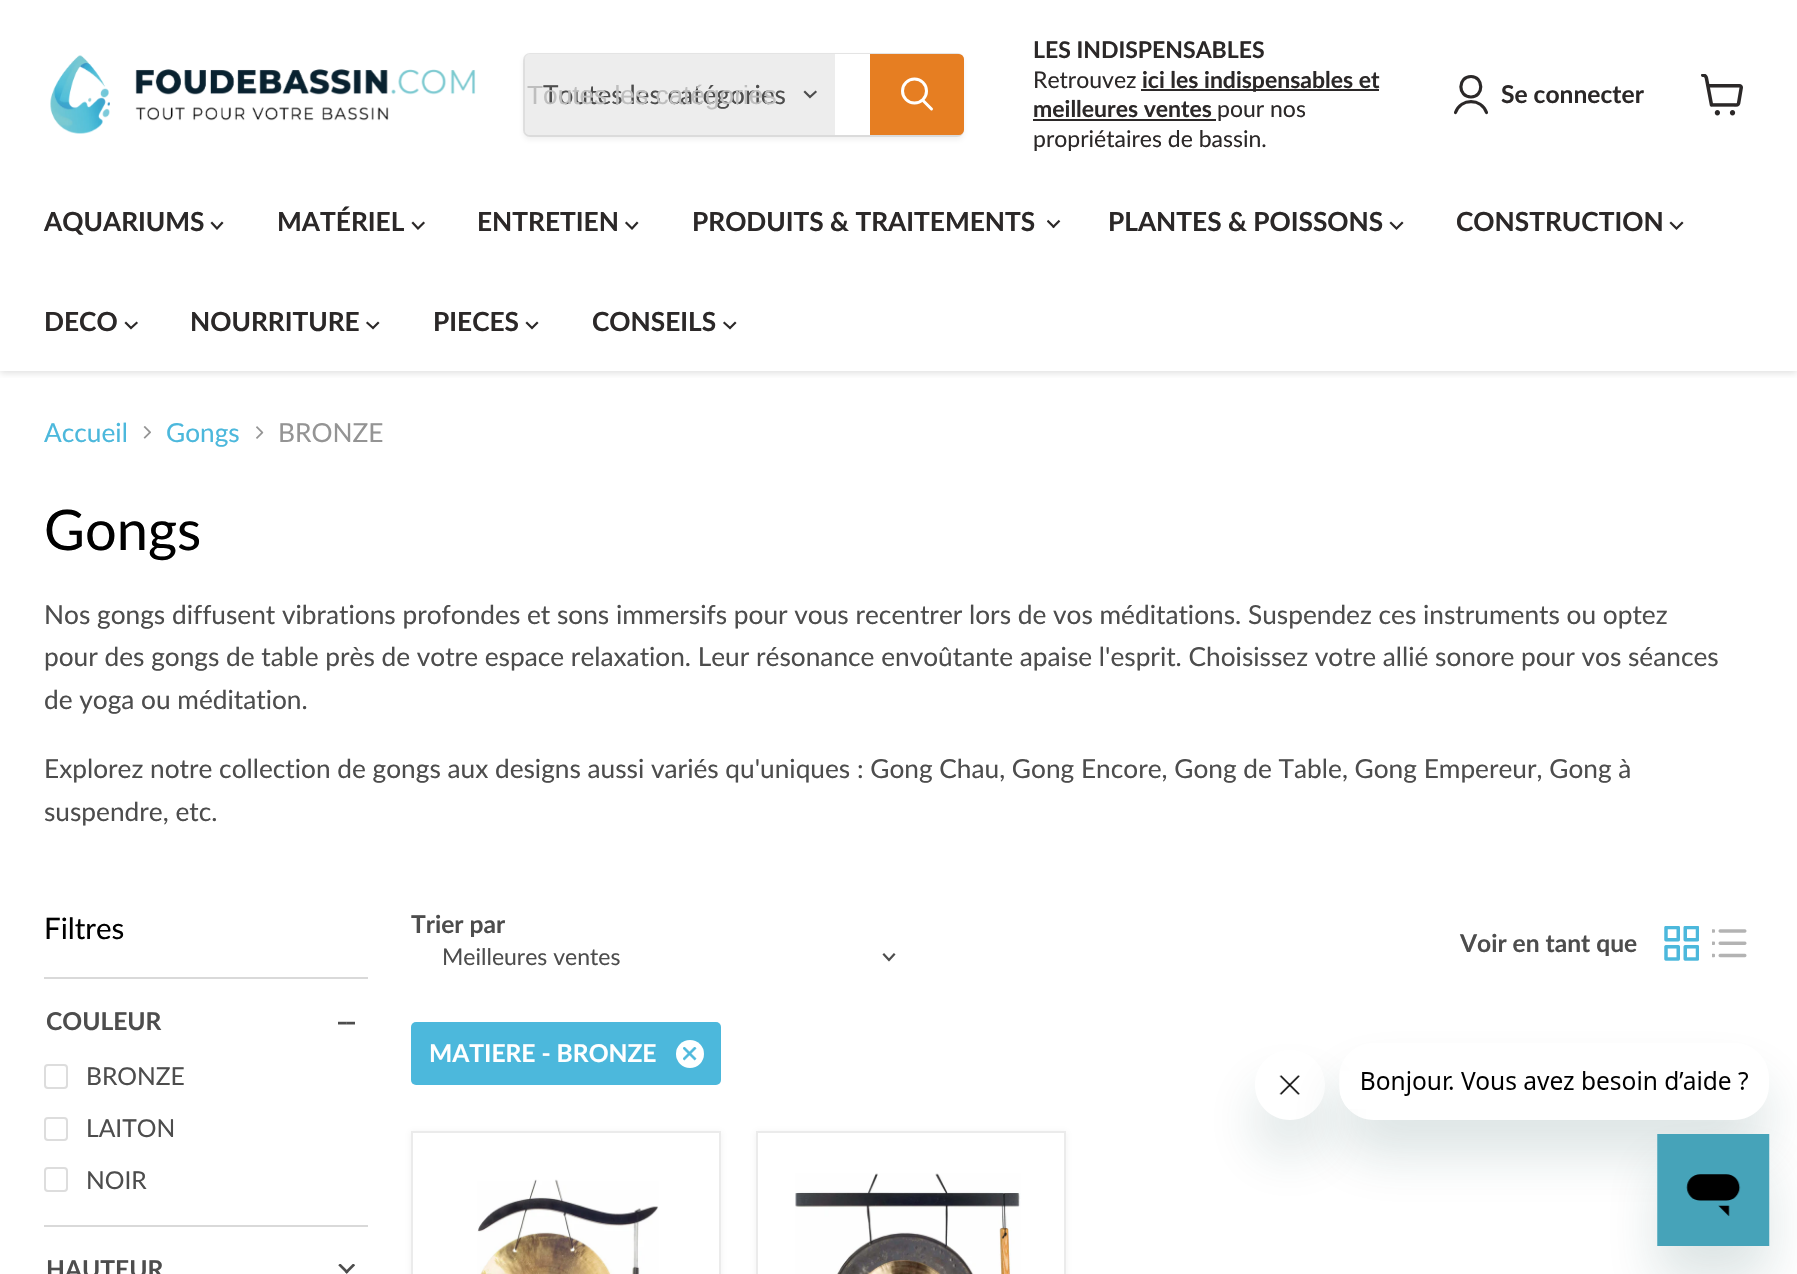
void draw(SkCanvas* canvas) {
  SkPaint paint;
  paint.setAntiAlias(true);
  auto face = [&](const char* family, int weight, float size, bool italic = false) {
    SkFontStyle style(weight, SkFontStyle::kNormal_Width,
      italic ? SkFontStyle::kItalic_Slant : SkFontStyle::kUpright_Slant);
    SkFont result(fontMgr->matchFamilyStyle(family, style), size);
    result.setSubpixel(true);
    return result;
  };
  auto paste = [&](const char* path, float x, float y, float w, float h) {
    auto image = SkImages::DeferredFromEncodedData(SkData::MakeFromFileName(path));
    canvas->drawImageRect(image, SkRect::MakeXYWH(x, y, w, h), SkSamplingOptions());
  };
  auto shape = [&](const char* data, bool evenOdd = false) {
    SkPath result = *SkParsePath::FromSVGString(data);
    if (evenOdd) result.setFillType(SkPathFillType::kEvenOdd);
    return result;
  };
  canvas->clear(0xffffffff);
  canvas->save();
  canvas->clipRect(SkRect::MakeXYWH(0, 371, 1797, 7));
  paint.setColor(0x40808080);
  paint.setMaskFilter(SkMaskFilter::MakeBlur(kNormal_SkBlurStyle, 3.5f));
  canvas->drawRect(SkRect::MakeXYWH(0, 2, 1797, 371), paint);
  paint.setMaskFilter(nullptr);
  canvas->restore();
  paste("img/1.png", 50, 55, 426, 79);
  paint.setColor(0x1c808080);
  paint.setMaskFilter(SkMaskFilter::MakeBlur(kNormal_SkBlurStyle, 2.5f));
  canvas->drawRoundRect(SkRect::MakeXYWH(523, 56, 441, 84), 7, 7, paint);
  paint.setMaskFilter(nullptr);
  paint.setStroke(true);
  paint.setStrokeWidth(2);
  paint.setColor(0x33808080);
  canvas->drawRoundRect(SkRect::MakeXYWH(524, 54, 439, 82), 6, 6, paint);
  paint.setStroke(false);
  paint.setColor(0xffededed);
  canvas->drawPath(shape("M530 54H835V135H530C527 135 525 133 525 130V59C525 56 527 54 530 54Z"), paint);
  paint.setStroke(true);
  paint.setStrokeWidth(2.2f);
  paint.setStrokeCap(SkPaint::kSquare_Cap);
  paint.setColor(0xff4d4d4d);
  canvas->drawPath(shape("M810 97L815.5 92M810 97L805 92"), paint);
  paint.setStroke(false);
  paint.setColor(0xffffffff);
  canvas->drawRect(SkRect::MakeXYWH(835, 54, 35, 81), paint);
  paint.setColor(0xffe67e22);
  canvas->drawPath(shape("M871 55H959C961 55 963 57 963 59V130C963 132 961 134 959 134H871Z"), paint);
  paint.setStroke(true);
  paint.setStrokeWidth(2);
  paint.setStrokeCap(SkPaint::kButt_Cap);
  canvas->drawPath(shape("M871 55H959C961 55 963 57 963 59V130C963 132 961 134 959 134H871Z"), paint);
  paint.setStrokeWidth(3);
  paint.setStrokeCap(SkPaint::kRound_Cap);
  paint.setColor(0xffffffff);
  canvas->drawPath(shape("M931.5 109L923 100.5"), paint);
  paint.setStrokeCap(SkPaint::kButt_Cap);
  canvas->drawCircle(914.5f, 91, 12, paint);
  paint.setStroke(false);
  paint.setColor(0xff2b2828);
  canvas->drawRect(SkRect::MakeXYWH(1141, 89, 238, 2), paint);
  canvas->drawRect(SkRect::MakeXYWH(1033, 119, 183, 2), paint);
  paint.setStroke(true);
  paint.setStrokeWidth(3.2f);
  paint.setStrokeCap(SkPaint::kRound_Cap);
  paint.setStrokeJoin(SkPaint::kRound_Join);
  canvas->drawPath(shape("M1471 97C1484 97 1484 76.5 1471 76.5C1457.5 76.5 1457.5 97 1471 97ZM1486.5 112.5C1481 98 1461 98 1455.5 112.5"), paint);
  paste("img/2.png", 1701, 74, 42, 42);
  paint.setStrokeWidth(2.2f);
  paint.setStrokeCap(SkPaint::kSquare_Cap);
  paint.setStrokeJoin(SkPaint::kMiter_Join);
  canvas->drawPath(shape("M217 228.5L222 223M217 228.5L212 223"), paint);
  canvas->drawPath(shape("M418 228.5L423.5 223M418 228.5L413 223"), paint);
  canvas->drawPath(shape("M632 228.5L637 223M632 228.5L626.5 223"), paint);
  paste("img/3.png", 1047, 219, 14, 10);
  canvas->drawPath(shape("M1396.5 228.5L1402 223M1396.5 228.5L1391 223"), paint);
  canvas->drawPath(shape("M1676.5 228.5L1682 223M1676.5 228.5L1671 223"), paint);
  canvas->drawPath(shape("M131 328L136.5 323M131 328L126 323"), paint);
  canvas->drawPath(shape("M373 328L378 323M373 328L367.5 323"), paint);
  canvas->drawPath(shape("M532 328L537 323M532 328L527 323"), paint);
  canvas->drawPath(shape("M730 328L735 323M730 328L724.5 323"), paint);
  paste("img/4.png", 143, 426, 8, 13);
  paste("img/5.png", 256, 426, 8, 13);
  paint.setStroke(false);
  paint.setColor(0xffd9d9d9);
  canvas->drawRect(SkRect::MakeXYWH(44, 977, 324, 2), paint);
  paste("img/6.png", 338, 1021, 17, 4);
  paint.setStroke(true);
  paint.setStrokeWidth(2);
  paint.setStrokeCap(SkPaint::kButt_Cap);
  paint.setColor(0xffdddddd);
  canvas->drawRoundRect(SkRect::MakeXYWH(45, 1065, 22, 23), 3, 3, paint);
  canvas->drawRoundRect(SkRect::MakeXYWH(45, 1118, 22, 22), 3, 3, paint);
  canvas->drawRoundRect(SkRect::MakeXYWH(45, 1168, 22, 23), 3, 3, paint);
  paint.setStroke(false);
  paint.setColor(0xffd9d9d9);
  canvas->drawRect(SkRect::MakeXYWH(44, 1225, 324, 2), paint);
  paste("img/7.png", 338, 1264, 17, 10);
  paint.setStroke(true);
  paint.setStrokeWidth(2.2f);
  paint.setStrokeCap(SkPaint::kSquare_Cap);
  paint.setColor(0xff4d4d4d);
  canvas->drawPath(shape("M889 960L894 954.5M889 960L884 954.5"), paint);
  paste("img/8.png", 1664, 926, 35, 35);
  paste("img/9.png", 1712, 929, 35, 29);
  paint.setStroke(false);
  paint.setColor(0xff4cb8dc);
  canvas->drawRoundRect(SkRect::MakeXYWH(411, 1022, 310, 63), 5, 5, paint);
  paint.setColor(0xffffffff);
  canvas->drawCircle(690, 1054, 14, paint);
  paste("img/10.png", 683, 1047, 14, 14);
  paint.setColor(0x1c808080);
  paint.setMaskFilter(SkMaskFilter::MakeBlur(kNormal_SkBlurStyle, 3.5f));
  canvas->drawRect(SkRect::MakeXYWH(411, 1132, 310, 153), paint);
  paint.setMaskFilter(nullptr);
  paint.setColor(0xffffffff);
  canvas->drawRect(SkRect::MakeXYWH(412, 1132, 308, 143), paint);
  paint.setStroke(true);
  paint.setStrokeWidth(2);
  paint.setStrokeCap(SkPaint::kButt_Cap);
  paint.setColor(0xffebebeb);
  canvas->drawRect(SkRect::MakeXYWH(412, 1132, 308, 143), paint);
  paste("img/11.png", 477, 1179, 182, 95);
  paint.setStroke(false);
  paint.setColor(0x1c808080);
  paint.setMaskFilter(SkMaskFilter::MakeBlur(kNormal_SkBlurStyle, 3.5f));
  canvas->drawRect(SkRect::MakeXYWH(756, 1132, 310, 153), paint);
  paint.setMaskFilter(nullptr);
  paint.setColor(0xffffffff);
  canvas->drawRect(SkRect::MakeXYWH(757, 1132, 308, 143), paint);
  paint.setStroke(true);
  paint.setColor(0xffebebeb);
  canvas->drawRect(SkRect::MakeXYWH(757, 1132, 308, 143), paint);
  paste("img/12.png", 795, 1173, 226, 101);
  canvas->save();
  canvas->clipPath(shape("M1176 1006H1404V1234H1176ZM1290 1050C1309.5 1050 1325 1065.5 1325 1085C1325 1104.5 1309.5 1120 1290 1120C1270.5 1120 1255 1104.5 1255 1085C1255 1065.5 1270.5 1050 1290 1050Z", true), true);
  paint.setStroke(false);
  paint.setColor(0x2617494d);
  paint.setMaskFilter(SkMaskFilter::MakeBlur(kNormal_SkBlurStyle, 26));
  canvas->drawRoundRect(SkRect::MakeXYWH(1255, 1085, 70, 70), 35, 35, paint);
  paint.setMaskFilter(nullptr);
  canvas->restore();
  paste("img/14.png", 1279, 1075, 21, 20);
  canvas->save();
  canvas->clipPath(shape("M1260 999H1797V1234H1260ZM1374 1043H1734C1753.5 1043 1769 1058.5 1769 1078V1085C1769 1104.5 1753.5 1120 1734 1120H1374C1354.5 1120 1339 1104.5 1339 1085V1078C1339 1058.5 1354.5 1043 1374 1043Z", true), true);
  paint.setMaskFilter(SkMaskFilter::MakeBlur(kNormal_SkBlurStyle, 26));
  canvas->drawRoundRect(SkRect::MakeXYWH(1339, 1078, 430, 77), 35, 35, paint);
  paint.setMaskFilter(nullptr);
  canvas->restore();
  paste("img/13.png", 1340, 1071, 408, 38);
  paint.setMaskFilter(SkMaskFilter::MakeBlur(kNormal_SkBlurStyle, 26));
  canvas->drawRect(SkRect::MakeXYWH(1657, 1169, 112, 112), paint);
  paint.setMaskFilter(nullptr);
  paste("img/15.png", 1657, 1134, 113, 112);
  auto f0 = face("Lato", 400, 26.25f);
  paint.setColor(0xff4d4d4d);
  canvas->drawString("Toutes les catégories", 543, 104, f0, paint);
  auto f1 = face("Liberation Sans", 400, 26.25f);
  paint.setColor(0xffbebebe);
  canvas->drawString("Toutes les catégories", 527, 104, f1, paint);
  auto f2 = face("Lato", 700, 23);
  paint.setColor(0xff2b2828);
  canvas->drawString("LES INDISPENSABLES", 1033, 58, f2, paint);
  auto f3 = face("Lato", 400, 23);
  canvas->drawString("Retrouvez", 1033, 88, f3, paint);
  canvas->drawString("ici les indispensables et", 1142, 88, f2, paint);
  canvas->drawString("meilleures ventes", 1033, 117, f2, paint);
  canvas->drawString("pour nos", 1217, 117, f3, paint);
  canvas->drawString("propriétaires de bassin.", 1033, 147, f3, paint);
  auto f4 = face("Lato", 700, 24.6f);
  canvas->drawString("Se connecter", 1501, 103, f4, paint);
  auto f5 = face("Lato", 700, 26.25f);
  {
    const struct { const char* s; float x, y; } items[] = {
      {"AQUARIUMS", 44, 231},
      {"MATÉRIEL", 277, 231},
      {"ENTRETIEN", 477, 231},
      {"PRODUITS & TRAITEMENTS", 692, 231},
      {"PLANTES & POISSONS", 1108, 231},
      {"CONSTRUCTION", 1456, 231},
      {"DECO", 44, 331},
      {"NOURRITURE", 190, 331},
      {"PIECES", 433, 331},
      {"CONSEILS", 592, 331},
    };
    for (auto [s, x, y] : items) {
      canvas->drawString(s, x, y, f5, paint);
    }
  }
  paint.setColor(0xff4cb8dc);
  canvas->drawString("Accueil", 44, 442, f0, paint);
  canvas->drawString("Gongs", 166, 442, f0, paint);
  paint.setColor(0xff949494);
  canvas->drawString("BRONZE", 278, 442, f0, paint);
  auto f6 = face("Lato", 400, 56);
  paint.setColor(0xff000000);
  canvas->drawString("Gongs", 44, 550, f6, paint);
  paint.setColor(0xff4d4d4d);
  {
    const struct { const char* s; float x, y; } items[] = {
      {"Nos gongs diffusent vibrations profondes et sons immersifs pour vous recentrer lors de vos méditations. Suspendez ces instruments ou optez", 44, 624},
      {"pour des gongs de table près de votre espace relaxation. Leur résonance envoûtante apaise l'esprit. Choisissez votre allié sonore pour vos séances", 44, 666},
      {"de yoga ou méditation.", 44, 709},
      {"Explorez notre collection de gongs aux designs aussi variés qu'uniques : Gong Chau, Gong Encore, Gong de Table, Gong Empereur, Gong à", 44, 778},
      {"suspendre, etc.", 44, 821},
    };
    for (auto [s, x, y] : items) {
      canvas->drawString(s, x, y, f0, paint);
    }
  }
  auto f7 = face("Lato", 400, 29.5f);
  paint.setColor(0xff000000);
  canvas->drawString("Filtres", 44, 939, f7, paint);
  paint.setColor(0xff4d4d4d);
  canvas->drawString("COULEUR", 46, 1030, f4, paint);
  auto f8 = face("Lato", 400, 24.6f);
  {
    const struct { const char* s; float x, y; } items[] = {
      {"BRONZE", 86, 1085},
      {"LAITON", 86, 1137},
      {"NOIR", 86, 1189},
    };
    for (auto [s, x, y] : items) {
      canvas->drawString(s, x, y, f8, paint);
    }
  }
  canvas->drawString("HAUTEUR", 46, 1278, f4, paint);
  canvas->drawString("Trier par", 411, 933, f4, paint);
  canvas->drawString("Meilleures ventes", 442, 965, f3, paint);
  canvas->drawString("Voir en tant que", 1460, 952, f4, paint);
  paint.setColor(0xffffffff);
  canvas->drawString("MATIERE - BRONZE", 429, 1062, f4, paint);
}
